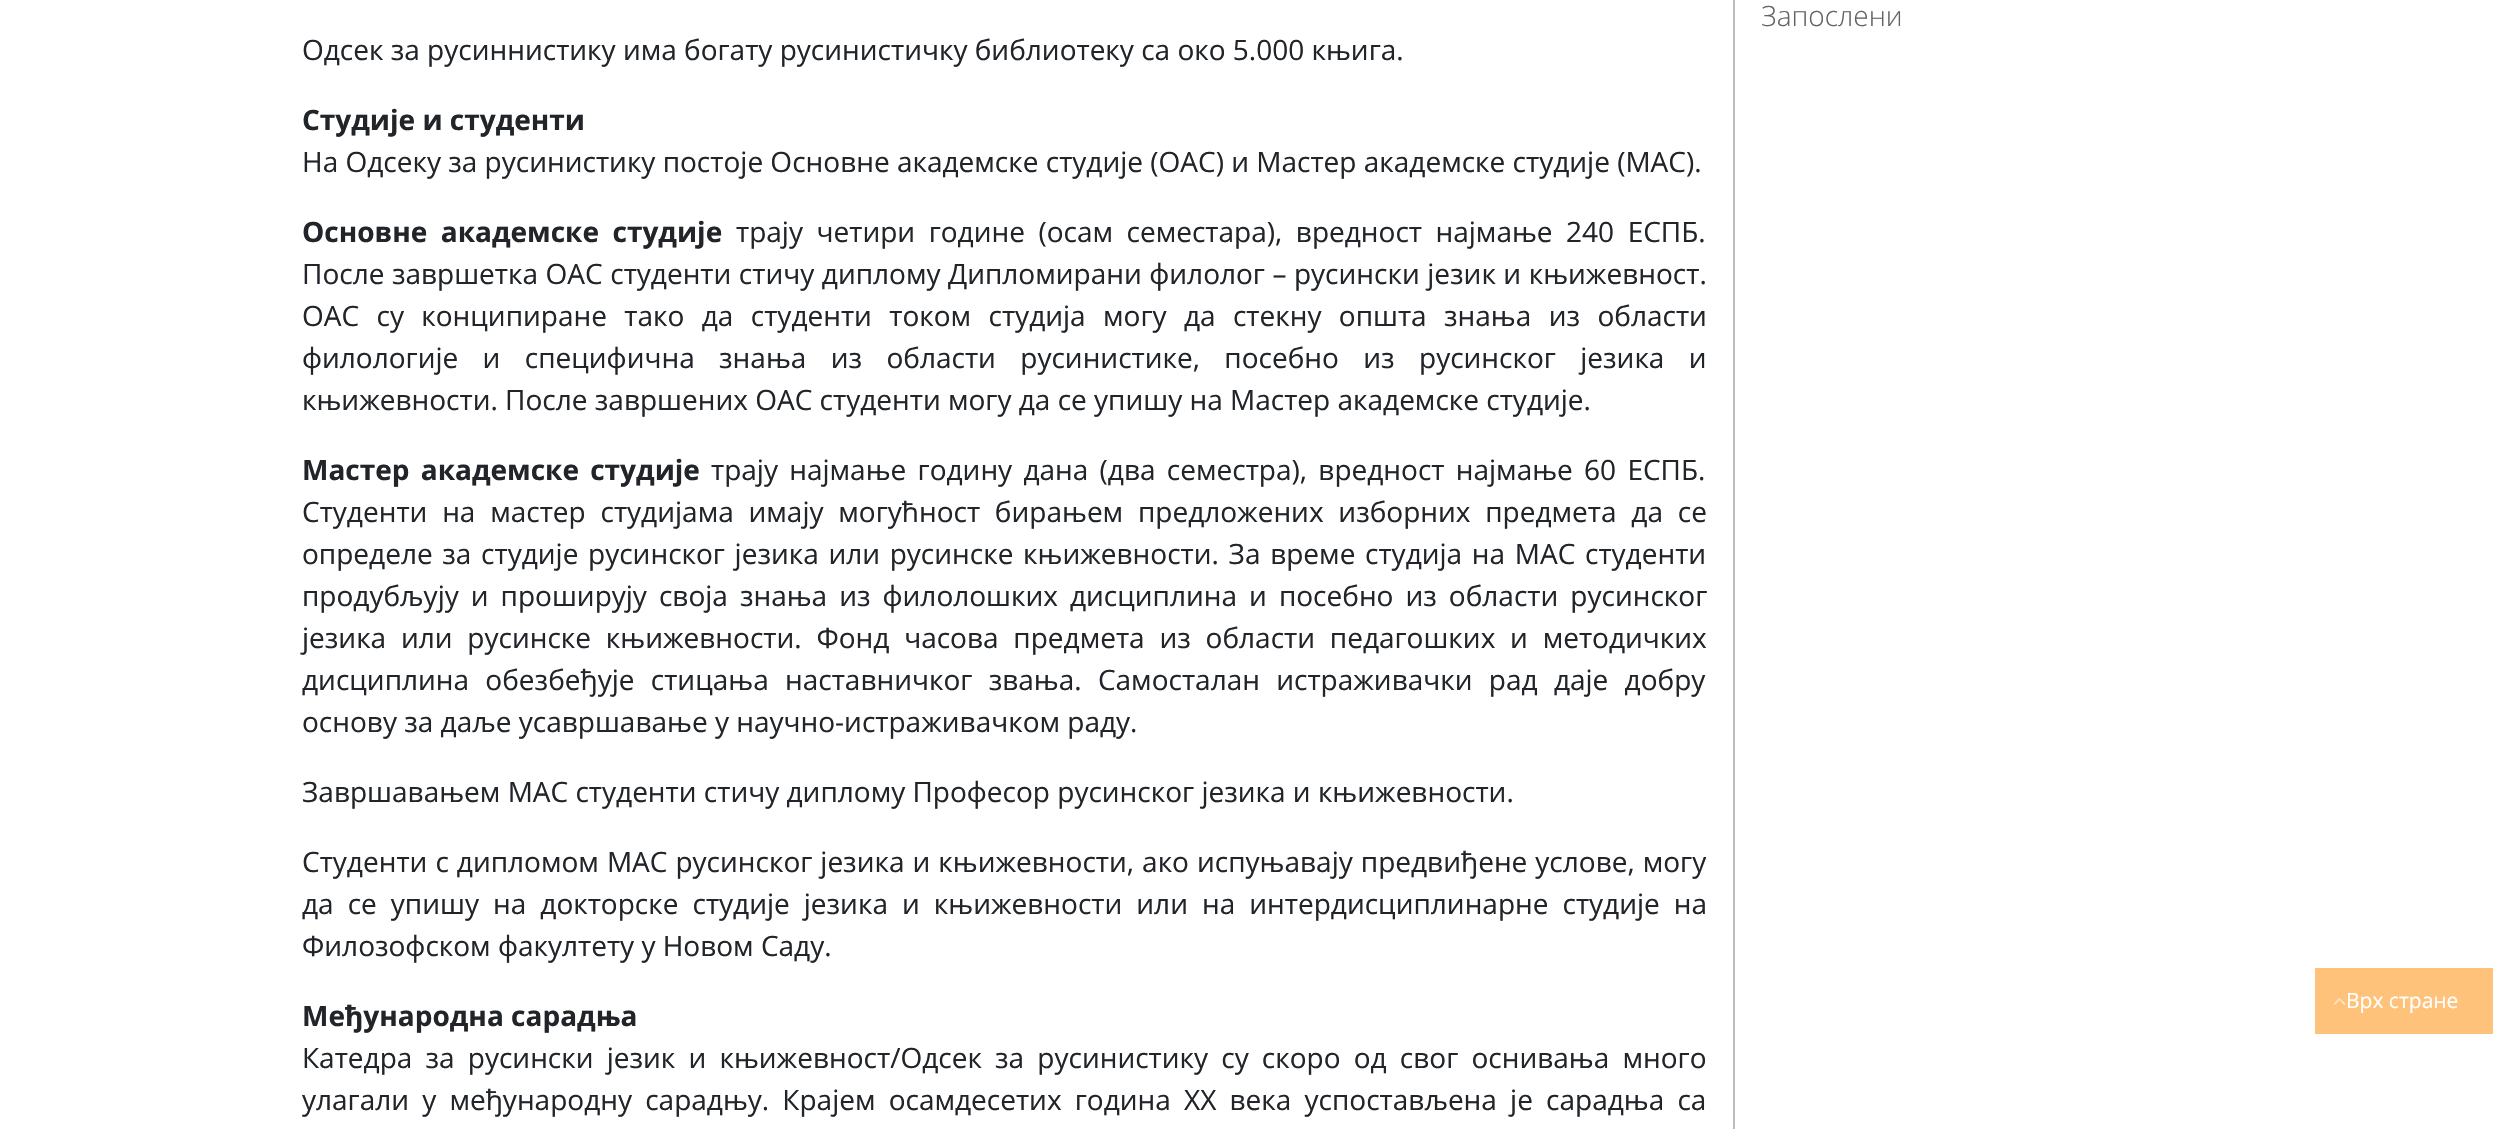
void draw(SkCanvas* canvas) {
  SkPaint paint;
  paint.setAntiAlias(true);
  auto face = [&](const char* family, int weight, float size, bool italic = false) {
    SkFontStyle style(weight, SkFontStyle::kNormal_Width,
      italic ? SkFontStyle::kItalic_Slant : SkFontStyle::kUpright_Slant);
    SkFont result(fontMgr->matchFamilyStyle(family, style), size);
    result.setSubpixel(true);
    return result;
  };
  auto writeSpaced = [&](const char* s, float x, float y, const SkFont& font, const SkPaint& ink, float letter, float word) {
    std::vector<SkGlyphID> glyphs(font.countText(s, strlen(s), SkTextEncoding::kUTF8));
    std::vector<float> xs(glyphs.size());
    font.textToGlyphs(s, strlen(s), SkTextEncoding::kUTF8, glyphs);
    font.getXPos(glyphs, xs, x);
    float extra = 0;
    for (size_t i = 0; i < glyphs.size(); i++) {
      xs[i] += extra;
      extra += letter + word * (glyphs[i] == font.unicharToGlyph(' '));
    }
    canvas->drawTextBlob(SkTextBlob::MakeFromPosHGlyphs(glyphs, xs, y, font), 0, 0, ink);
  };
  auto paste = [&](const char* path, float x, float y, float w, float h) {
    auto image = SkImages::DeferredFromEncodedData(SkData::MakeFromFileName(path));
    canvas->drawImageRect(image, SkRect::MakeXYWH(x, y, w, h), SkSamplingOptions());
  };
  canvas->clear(0xffffffff);
  paint.setColor(0xffbcbcbc);
  canvas->drawRect(SkRect::MakeXYWH(1733, 0, 2, 1129), paint);
  paint.setColor(0xffffc27b);
  canvas->drawRect(SkRect::MakeXYWH(2315, 968, 178, 66), paint);
  paste("img/1.png", 2333, 998, 13, 7);
  auto f0 = face("Open Sans", 300, 28);
  paint.setColor(0xff646363);
  canvas->drawString("Запослени", 1761, 26, f0, paint);
  auto f1 = face("Open Sans", 400, 28);
  paint.setColor(0xff212529);
  canvas->drawString("Одсек за русиннистику има богату русинистичку библиотеку са око 5.000 књига.", 302, 60, f1, paint);
  auto f2 = face("Open Sans", 700, 28);
  canvas->drawString("Студије и студенти", 302, 130, f2, paint);
  canvas->drawString("На Одсеку за русинистику постоје Основне академске студије (ОАС) и Мастер академске студије (МАС).", 302, 172, f1, paint);
  writeSpaced("Основне академске студије", 302, 242, f2, paint, 0, 6.25f);
  writeSpaced("трају четири године (осам семестара), вредност најмање 240 ЕСПБ.", 736, 242, f1, paint, 0, 6.25f);
  writeSpaced("После завршетка ОАС студенти стичу диплому Дипломирани филолог – русински језик и књижевност.", 302, 284, f1, paint, 0, 0.25f);
  writeSpaced("ОАС су конципиране тако да студенти током студија могу да стекну општа знања из области", 302, 326, f1, paint, 0, 10.1f);
  writeSpaced("филологије и специфична знања из области русинистике, посебно из русинског језика и", 302, 368, f1, paint, 0, 17.1f);
  canvas->drawString("књижевности. После завршених ОАС студенти могу да се упишу на Мастер академске студије.", 302, 410, f1, paint);
  writeSpaced("Мастер академске студије", 302, 480, f2, paint, 0, 4);
  writeSpaced("трају најмање годину дана (два семестра), вредност најмање 60 ЕСПБ.", 711, 480, f1, paint, 0, 4);
  writeSpaced("Студенти на мастер студијама имају могућност бирањем предложених изборних предмета да се", 302, 522, f1, paint, 0, 7.5f);
  writeSpaced("определе за студије русинског језика или русинске књижевности. За време студија на МАС студенти", 302, 564, f1, paint, 0, 2.4f);
  writeSpaced("продубљују и проширују своја знања из филолошких дисциплина и посебно из области русинског", 302, 606, f1, paint, 0, 4.75f);
  writeSpaced("језика или русинске књижевности. Фонд часова предмета из области педагошких и методичких", 302, 648, f1, paint, 0, 7.5f);
  writeSpaced("дисциплина обезбеђује стицања наставничког звања. Самосталан истраживачки рад даје добру", 302, 690, f1, paint, 0, 9);
  canvas->drawString("основу за даље усавршавање у научно-истраживачком раду.", 302, 732, f1, paint);
  canvas->drawString("Завршавањем МАС студенти стичу диплому Професор русинског језика и књижевности.", 302, 802, f1, paint);
  writeSpaced("Студенти с дипломом МАС русинског језика и књижевности, ако испуњавају предвиђене услове, могу", 302, 872, f1, paint, 0, 0.75f);
  writeSpaced("да се упишу на докторске студије језика и књижевности или на интердисциплинарне студије на", 302, 914, f1, paint, 0, 6.75f);
  canvas->drawString("Филозофском факултету у Новом Саду.", 302, 956, f1, paint);
  canvas->drawString("Међународна сарадња", 302, 1026, f2, paint);
  writeSpaced("Катедра за русински језик и књижевност/Одсек за русинистику су скоро од свог оснивања много", 302, 1068, f1, paint, 0, 5.9f);
  writeSpaced("улагали у међународну сарадњу. Крајем осамдесетих година ХХ века успостављена је сарадња са", 302, 1110, f1, paint, 0, 5.9f);
  auto f3 = face("Open Sans", 400, 21);
  paint.setColor(0xffffffff);
  canvas->drawString("Врх стране", 2346, 1008, f3, paint);
}
